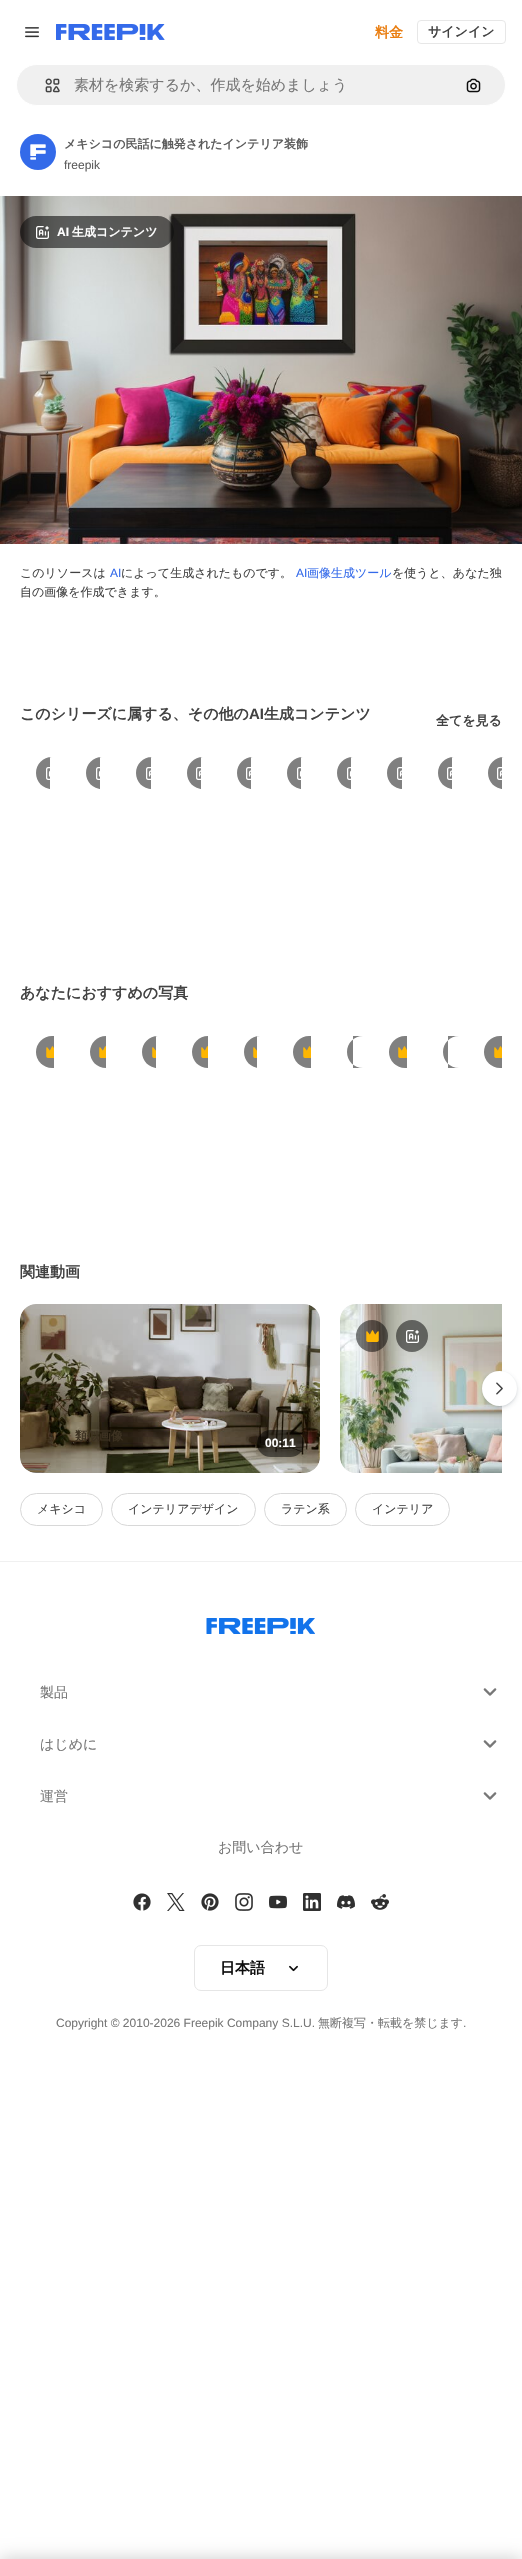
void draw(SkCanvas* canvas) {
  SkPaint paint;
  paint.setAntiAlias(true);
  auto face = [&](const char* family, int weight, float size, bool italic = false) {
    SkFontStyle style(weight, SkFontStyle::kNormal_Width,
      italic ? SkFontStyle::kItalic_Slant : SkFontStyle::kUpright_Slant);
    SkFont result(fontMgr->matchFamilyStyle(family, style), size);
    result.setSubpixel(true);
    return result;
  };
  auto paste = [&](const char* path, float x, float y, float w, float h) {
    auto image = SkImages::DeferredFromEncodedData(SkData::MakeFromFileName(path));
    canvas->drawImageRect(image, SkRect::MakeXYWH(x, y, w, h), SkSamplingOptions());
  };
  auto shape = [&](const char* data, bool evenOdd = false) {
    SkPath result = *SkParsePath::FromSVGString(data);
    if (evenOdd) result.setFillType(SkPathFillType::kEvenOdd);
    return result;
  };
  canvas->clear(0xffffffff);
  paste("img/1.png", 25, 27, 14, 11);
  paste("img/2.png", 56, 24, 109, 16);
  paint.setStroke(true);
  paint.setStrokeWidth(1);
  paint.setColor(0xffe7e7e7);
  canvas->drawRoundRect(SkRect::MakeXYWH(417.5f, 20.5f, 88, 23), 3.5f, 3.5f, paint);
  paint.setStroke(false);
  paint.setColor(0xfff0f0f0);
  canvas->drawRoundRect(SkRect::MakeXYWH(16.5f, 64.5f, 489, 41), 20.5f, 20.5f, paint);
  paint.setStroke(true);
  paint.setColor(0xffffffff);
  canvas->drawRoundRect(SkRect::MakeXYWH(16.5f, 64.5f, 489, 41), 20.5f, 20.5f, paint);
  paste("img/3.png", 45, 78, 15, 15);
  paste("img/4.png", 466, 78, 15, 15);
  paste("img/5.png", 20, 134, 36, 36);
  paste("img/6.png", 0, 196, 522, 348);
  paint.setStroke(false);
  paint.setColor(0x990d0d0d);
  canvas->drawRoundRect(SkRect::MakeXYWH(20, 216, 154, 32), 16, 16, paint);
  paste("img/7.png", 36, 226, 13, 13);
  paint.setColor(0xff808080);
  canvas->drawPath(shape("M52 757H50V789H52C43 789 36 782 36 773C36 764 43 757 52 757Z"), paint);
  paste("img/8.png", 46, 767, 4, 13);
  canvas->drawPath(shape("M102 757H100V789H102C93 789 86 782 86 773C86 764 93 757 102 757Z"), paint);
  paste("img/8.png", 96, 767, 4, 13);
  canvas->drawPath(shape("M152 757H151V789H152C143 789 136 782 136 773C136 764 143 757 152 757Z"), paint);
  paste("img/9.png", 146, 767, 5, 13);
  canvas->drawPath(shape("M203 757H201V789H203C194 789 187 782 187 773C187 764 194 757 203 757Z"), paint);
  paste("img/9.png", 196, 767, 5, 13);
  canvas->drawPath(shape("M253 757H251V789H253C244 789 237 782 237 773C237 764 244 757 253 757Z"), paint);
  paste("img/9.png", 246, 767, 5, 13);
  canvas->drawPath(shape("M303 757H301V789H303C294 789 287 782 287 773C287 764 294 757 303 757Z"), paint);
  paste("img/8.png", 297, 767, 4, 13);
  canvas->drawPath(shape("M353 757H351V789H353C344 789 337 782 337 773C337 764 344 757 353 757Z"), paint);
  paste("img/8.png", 347, 767, 4, 13);
  canvas->drawPath(shape("M403 757H402V789H403C394 789 387 782 387 773C387 764 394 757 403 757Z"), paint);
  paste("img/9.png", 397, 767, 5, 13);
  canvas->drawPath(shape("M454 757H452V789H454C445 789 438 782 438 773C438 764 445 757 454 757Z"), paint);
  paste("img/9.png", 447, 767, 5, 13);
  canvas->drawPath(shape("M504 757H502V789H504C495 789 488 782 488 773C488 764 495 757 504 757Z"), paint);
  paste("img/9.png", 497, 767, 5, 13);
  canvas->save();
  canvas->clipPath(shape("M36 1020H38C47 1020 54 1027 54 1036V1204C54 1213 47 1220 38 1220H36C27 1220 20 1213 20 1204V1036C20 1027 27 1020 36 1020Z"), true);
  canvas->drawCircle(52, 1052, 16, paint);
  canvas->restore();
  paste("img/10.png", 46, 1046, 8, 12);
  canvas->drawPath(shape("M106 1036V1068C97 1068 90 1061 90 1052C90 1043 97 1036 106 1036Z"), paint);
  paste("img/11.png", 99, 1046, 7, 12);
  canvas->drawPath(shape("M158 1036H156V1068H158C149 1068 142 1061 142 1052C142 1043 149 1036 158 1036Z"), paint);
  paste("img/12.png", 152, 1047, 4, 11);
  canvas->drawPath(shape("M208 1036V1068C199 1068 192 1061 192 1052C192 1043 199 1036 208 1036Z"), paint);
  paste("img/11.png", 201, 1046, 7, 12);
  canvas->drawPath(shape("M260 1036H257V1068H260C251 1068 244 1061 244 1052C244 1043 251 1036 260 1036Z"), paint);
  paste("img/12.png", 253, 1047, 4, 11);
  canvas->save();
  canvas->clipPath(shape("M293 1020H295C304 1020 311 1027 311 1036V1204C311 1213 304 1220 295 1220H293C284 1220 277 1213 277 1204V1036C277 1027 284 1020 293 1020Z"), true);
  canvas->drawCircle(309, 1052, 16, paint);
  canvas->restore();
  paste("img/10.png", 303, 1046, 8, 12);
  canvas->drawPath(shape("M363 1036H353V1068H363C354 1068 347 1061 347 1052C347 1043 354 1036 363 1036Z"), paint);
  canvas->save();
  canvas->clipPath(shape("M389 1020H391C400 1020 407 1027 407 1036V1204C407 1213 400 1220 391 1220H389C380 1220 373 1213 373 1204V1036C373 1027 380 1020 389 1020Z"), true);
  canvas->drawCircle(405, 1052, 16, paint);
  canvas->restore();
  paste("img/13.png", 398, 1046, 9, 12);
  canvas->drawPath(shape("M459 1036H448V1068H459C450 1068 443 1061 443 1052C443 1043 450 1036 459 1036Z"), paint);
  canvas->save();
  canvas->clipPath(shape("M484 1020H486C495 1020 502 1027 502 1036V1204C502 1213 495 1220 486 1220H484C475 1220 468 1213 468 1204V1036C468 1027 475 1020 484 1020Z"), true);
  canvas->drawCircle(500, 1052, 16, paint);
  canvas->restore();
  paste("img/10.png", 494, 1046, 8, 12);
  paint.setColor(0xffe6e6e6);
  canvas->drawPath(shape("M356 1304H502V1473H356C347 1473 340 1466 340 1457V1320C340 1311 347 1304 356 1304Z"), paint);
  paste("img/16.png", 340, 1304, 162, 169);
  paint.setColor(0x26374957);
  paint.setMaskFilter(SkMaskFilter::MakeBlur(kNormal_SkBlurStyle, 2.5f));
  canvas->drawRoundRect(SkRect::MakeXYWH(482, 1373, 35, 35), 17.5f, 17.5f, paint);
  paint.setMaskFilter(nullptr);
  paint.setColor(0x1a374957);
  paint.setMaskFilter(SkMaskFilter::MakeBlur(kNormal_SkBlurStyle, 1));
  canvas->drawRoundRect(SkRect::MakeXYWH(482, 1372, 35, 35), 17.5f, 17.5f, paint);
  paint.setMaskFilter(nullptr);
  paint.setColor(0xffffffff);
  canvas->drawCircle(499.5f, 1388.5f, 17.5f, paint);
  paste("img/14.png", 496, 1382, 7, 13);
  paint.setColor(0xffe6e6e6);
  canvas->drawRoundRect(SkRect::MakeXYWH(20, 1304, 300, 169), 16, 16, paint);
  paste("img/15.png", 20, 1304, 300, 169);
  paint.setColor(0x80000000);
  canvas->drawRoundRect(SkRect::MakeXYWH(257, 1430, 47, 27), 13.5f, 13.5f, paint);
  canvas->drawCircle(372, 1336, 16, paint);
  paste("img/17.png", 366, 1330, 13, 12);
  canvas->drawCircle(412, 1336, 16, paint);
  paste("img/18.png", 406, 1330, 13, 13);
  paint.setStroke(true);
  paint.setColor(0xffd8d8d8);
  canvas->drawRoundRect(SkRect::MakeXYWH(20.5f, 1493.5f, 82, 32), 16, 16, paint);
  canvas->drawRoundRect(SkRect::MakeXYWH(111.5f, 1493.5f, 144, 32), 16, 16, paint);
  canvas->drawRoundRect(SkRect::MakeXYWH(264.5f, 1493.5f, 82, 32), 16, 16, paint);
  canvas->drawRoundRect(SkRect::MakeXYWH(355.5f, 1493.5f, 94, 32), 16, 16, paint);
  paint.setStroke(false);
  paint.setColor(0xfff0f0f0);
  canvas->drawRect(SkRect::MakeXYWH(0, 1561, 522, 1), paint);
  paste("img/19.png", 206, 1618, 109, 16);
  paste("img/20.png", 483, 1688, 14, 8);
  paste("img/20.png", 483, 1740, 14, 8);
  paste("img/20.png", 483, 1792, 14, 8);
  paste("img/21.png", 133, 1893, 18, 18);
  paste("img/22.png", 167, 1893, 18, 18);
  paste("img/23.png", 201, 1893, 18, 18);
  paste("img/24.png", 235, 1893, 18, 18);
  paste("img/25.png", 269, 1895, 18, 14);
  paste("img/26.png", 303, 1893, 18, 18);
  paste("img/27.png", 337, 1895, 18, 14);
  paste("img/28.png", 371, 1894, 18, 16);
  paint.setStroke(true);
  paint.setColor(0xffe6e6e6);
  canvas->drawRoundRect(SkRect::MakeXYWH(194.5f, 1945.5f, 133, 45), 6.5f, 6.5f, paint);
  paste("img/29.png", 289, 1965, 9, 7);
  paint.setStroke(false);
  paint.setColor(0x33000000);
  paint.setMaskFilter(SkMaskFilter::MakeBlur(kNormal_SkBlurStyle, 9));
  canvas->drawRect(SkRect::MakeXYWH(0, 2559, 522, 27), paint);
  paint.setMaskFilter(nullptr);
  auto f0 = face("WenQuanYi Zen Hei", 700, 14);
  paint.setColor(0xffea7e11);
  canvas->drawString("料金", 375, 37, f0, paint);
  auto f1 = face("WenQuanYi Zen Hei", 700, 13);
  paint.setColor(0xff424242);
  canvas->drawString("サインイン", 428, 36, f1, paint);
  auto f2 = face("WenQuanYi Zen Hei", 500, 15);
  paint.setColor(0xff777777);
  canvas->drawString("素材を検索するか、作成を始めましょう", 74, 90, f2, paint);
  auto f3 = face("WenQuanYi Zen Hei", 700, 12);
  paint.setColor(0xff5c5c5c);
  canvas->drawString("メキシコの民話に触発されたインテリア装飾", 64, 148, f3, paint);
  auto f4 = face("Liberation Sans", 400, 12);
  canvas->drawString("freepik", 64, 169, f4, paint);
  auto f5 = face("Liberation Sans", 700, 12);
  paint.setColor(0xffffffff);
  canvas->drawString("AI", 57, 236, f5, paint);
  canvas->drawString("生成コンテンツ", 72, 236, f3, paint);
  auto f6 = face("WenQuanYi Zen Hei", 500, 12);
  paint.setColor(0xff424242);
  canvas->drawString("このリソースは", 20, 577, f6, paint);
  paint.setColor(0xff346aea);
  canvas->drawString("AI", 110, 577, f4, paint);
  paint.setColor(0xff424242);
  canvas->drawString("によって生成されたものです。", 121, 577, f6, paint);
  paint.setColor(0xff346aea);
  canvas->drawString("AI", 296, 577, f4, paint);
  canvas->drawString("画像生成ツール", 307, 577, f6, paint);
  paint.setColor(0xff424242);
  canvas->drawString("を使うと、あなた独", 392, 577, f6, paint);
  canvas->drawString("自の画像を作成できます。", 20, 596, f6, paint);
  auto f7 = face("WenQuanYi Zen Hei", 700, 15);
  canvas->drawString("このシリーズに属する、その他の", 20, 719, f7, paint);
  auto f8 = face("Liberation Sans", 700, 15);
  canvas->drawString("AI", 249, 719, f8, paint);
  canvas->drawString("生成コンテンツ", 264, 719, f7, paint);
  canvas->drawString("全てを見る", 436, 725, f1, paint);
  canvas->drawString("あなたにおすすめの写真", 20, 998, f7, paint);
  canvas->drawString("関連動画", 20, 1277, f7, paint);
  paint.setColor(0xff3c3121);
  canvas->drawString("類似画像", 75, 1440, f3, paint);
  paint.setColor(0xffffffff);
  canvas->drawString("00:11", 265, 1447, f5, paint);
  paint.setColor(0xff424242);
  {
    const struct { const char* s; float x, y; } items[] = {
      {"メキシコ", 37, 1513},
      {"インテリアデザイン", 128, 1513},
      {"ラテン系", 281, 1513},
      {"インテリア", 372, 1513},
    };
    for (auto [s, x, y] : items) {
      canvas->drawString(s, x, y, f6, paint);
    }
  }
  auto f9 = face("WenQuanYi Zen Hei", 500, 14);
  paint.setColor(0xff777777);
  {
    const struct { const char* s; float x, y; } items[] = {
      {"製品", 40, 1697},
      {"はじめに", 40, 1749},
      {"運営", 40, 1801},
      {"お問い合わせ", 218, 1852},
    };
    for (auto [s, x, y] : items) {
      canvas->drawString(s, x, y, f9, paint);
    }
  }
  paint.setColor(0xff0d0d0d);
  canvas->drawString("日本語", 220, 1973, f7, paint);
  paint.setColor(0xff777777);
  canvas->drawString("Copyright © 2010-2026 Freepik Company S.L.U.", 56, 2027, f4, paint);
  canvas->drawString("無断複写・転載を禁じます", 318, 2027, f6, paint);
  canvas->drawString(".", 463, 2027, f4, paint);
}
